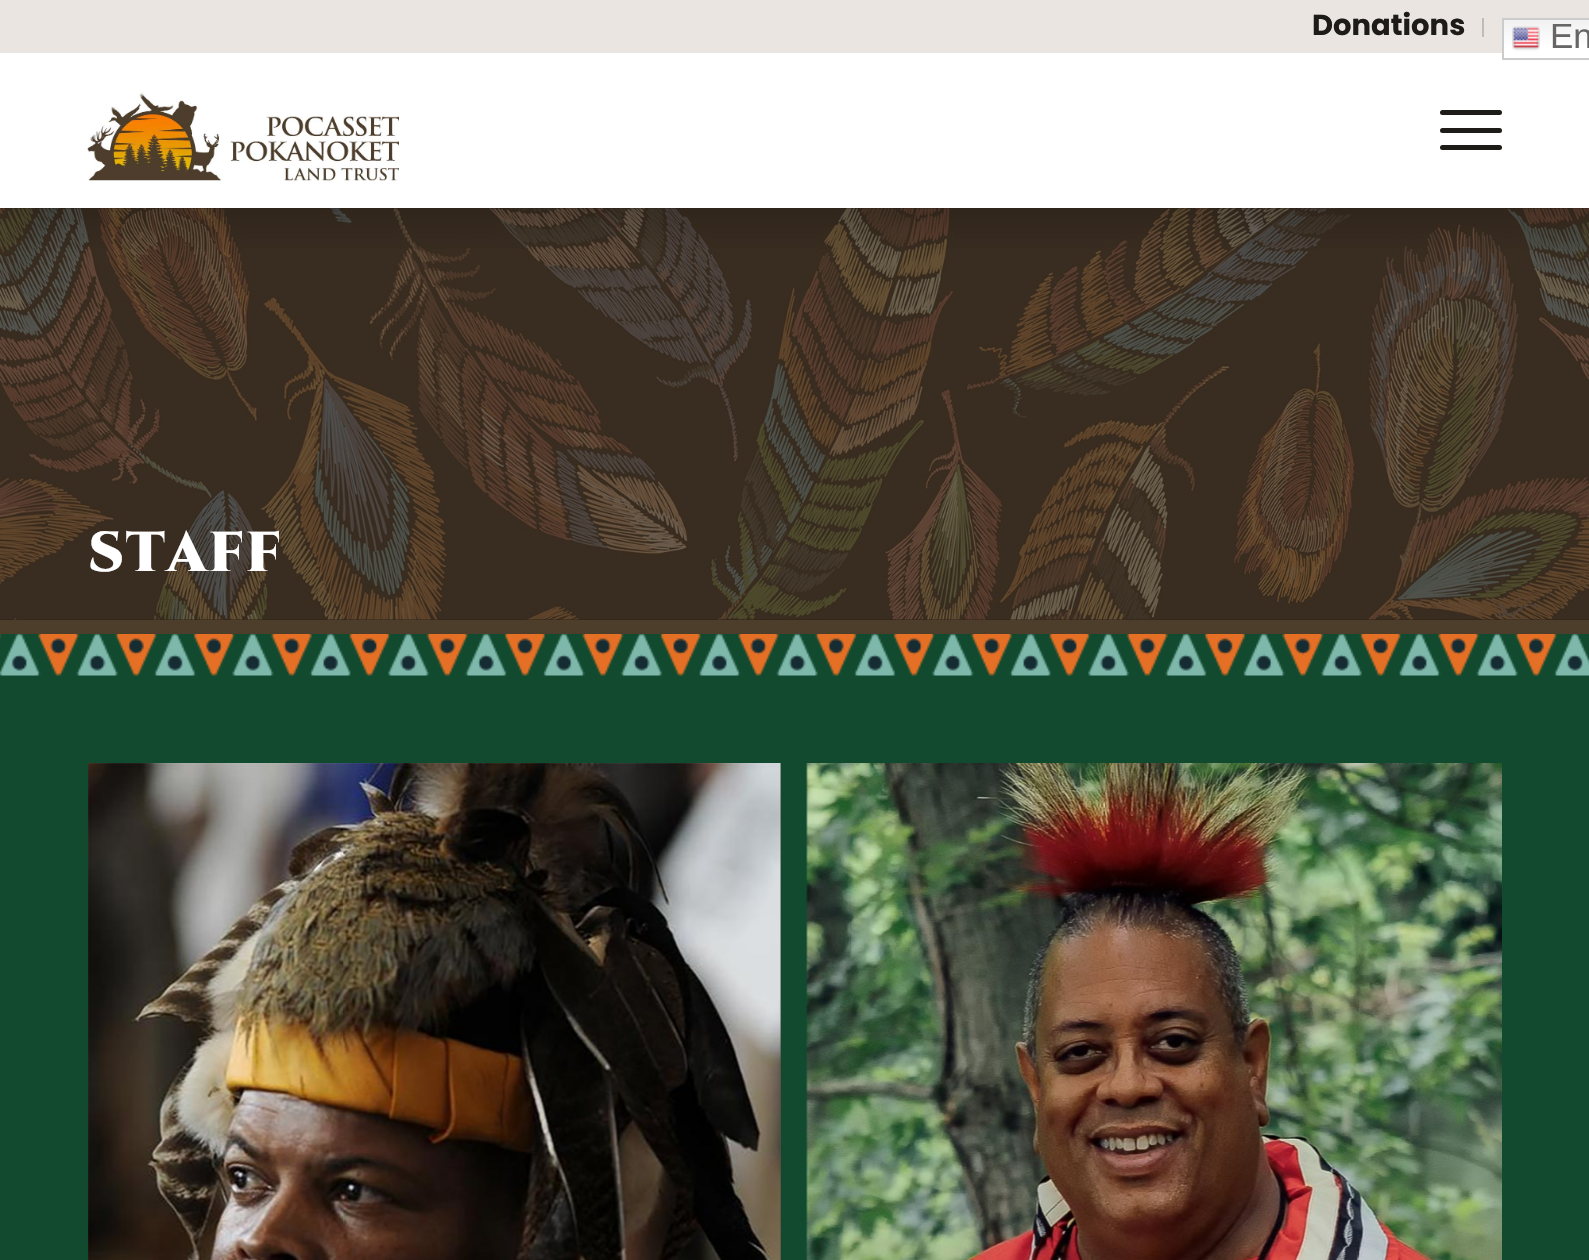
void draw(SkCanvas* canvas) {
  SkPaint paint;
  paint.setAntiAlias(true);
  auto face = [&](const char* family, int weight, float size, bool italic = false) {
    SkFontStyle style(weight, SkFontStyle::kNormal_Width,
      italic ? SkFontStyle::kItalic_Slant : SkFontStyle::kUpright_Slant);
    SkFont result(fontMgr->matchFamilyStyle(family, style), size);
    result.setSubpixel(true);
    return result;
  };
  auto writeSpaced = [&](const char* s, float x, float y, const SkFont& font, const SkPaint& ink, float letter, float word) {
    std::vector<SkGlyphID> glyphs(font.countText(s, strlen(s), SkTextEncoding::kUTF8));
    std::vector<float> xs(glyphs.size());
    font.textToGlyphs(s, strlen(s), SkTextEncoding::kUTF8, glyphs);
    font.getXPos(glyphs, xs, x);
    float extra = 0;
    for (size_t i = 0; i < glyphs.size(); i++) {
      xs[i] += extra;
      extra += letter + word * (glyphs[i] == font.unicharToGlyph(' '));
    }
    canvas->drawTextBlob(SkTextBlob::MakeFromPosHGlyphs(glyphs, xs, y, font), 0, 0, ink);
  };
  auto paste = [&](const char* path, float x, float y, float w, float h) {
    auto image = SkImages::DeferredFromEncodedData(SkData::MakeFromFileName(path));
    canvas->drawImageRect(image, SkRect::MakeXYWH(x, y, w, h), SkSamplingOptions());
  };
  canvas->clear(0xff124a2f);
  paint.setColor(0xffffffff);
  canvas->drawRect(SkRect::MakeXYWH(0, 53, 1589, 155), paint);
  paint.setColor(0xff2d2218);
  canvas->drawRect(SkRect::MakeXYWH(0, 208, 1589, 412), paint);
  paste("img/3.png", 0, 208, 1589, 412);
  canvas->save();
  canvas->clipRect(SkRect::MakeXYWH(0, 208, 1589, 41));
  paint.setColor(0x33000000);
  paint.setMaskFilter(SkMaskFilter::MakeBlur(kNormal_SkBlurStyle, 21));
  canvas->drawRect(SkRect::MakeXYWH(14, 65, 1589, 157), paint);
  paint.setMaskFilter(nullptr);
  canvas->restore();
  paste("img/1.png", 87, 92, 312, 89);
  paint.setColor(0xff1e1c19);
  canvas->drawRoundRect(SkRect::MakeXYWH(1440, 128, 62, 5), 2.5f, 2.5f, paint);
  canvas->drawRoundRect(SkRect::MakeXYWH(1440, 110, 62, 5), 2.5f, 2.5f, paint);
  canvas->drawRoundRect(SkRect::MakeXYWH(1440, 145, 62, 5), 2.5f, 2.5f, paint);
  paint.setColor(0xffeae5e1);
  canvas->drawRect(SkRect::MakeXYWH(0, 0, 1589, 53), paint);
  paint.setColor(0xffbfbbb6);
  canvas->drawRect(SkRect::MakeXYWH(1482, 18, 2, 19), paint);
  {
    const SkColor colors[] = {0xffefefef, 0xffffffff};
    const float stops[] = {0, 0.7f};
    const SkPoint ends[] = {{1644, 17}, {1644, 60}};
    paint.setShader(SkGradientShader::MakeLinear(ends, colors, stops, 2, SkTileMode::kClamp));
    paint.setAlpha(255);
  }
  canvas->drawRect(SkRect::MakeXYWH(1504, 20, 85, 33), paint);
  paint.setStroke(true);
  paint.setStrokeWidth(2);
  paint.setShader(nullptr);
  paint.setColor(0xffcccccc);
  canvas->drawRect(SkRect::MakeXYWH(1503, 19, 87, 40), paint);
  paste("img/2.png", 1512, 26, 28, 25);
  paint.setStroke(false);
  paint.setColor(0xff4d3d2b);
  canvas->drawRect(SkRect::MakeXYWH(0, 620, 1589, 14), paint);
  paste("img/4.png", 0, 634, 1589, 42);
  paint.setColor(0xff4c4945);
  canvas->drawRect(SkRect::MakeXYWH(780, 763, 1, 497), paint);
  paste("img/5.png", 88, 763, 693, 497);
  paste("img/6.png", 806, 763, 696, 497);
  auto f0 = face("Poppins", 700, 29);
  paint.setColor(0xff1e1c19);
  canvas->drawString("Donations", 1312, 35, f0, paint);
  auto f1 = face("Liberation Sans", 400, 35);
  paint.setColor(0xff666666);
  canvas->drawString("En", 1550, 48, f1, paint);
  auto f2 = face("Cinzel", 900, 56);
  paint.setColor(0xffffffff);
  writeSpaced("STAFF", 88, 571, f2, paint, 1.75f, 0);
}
